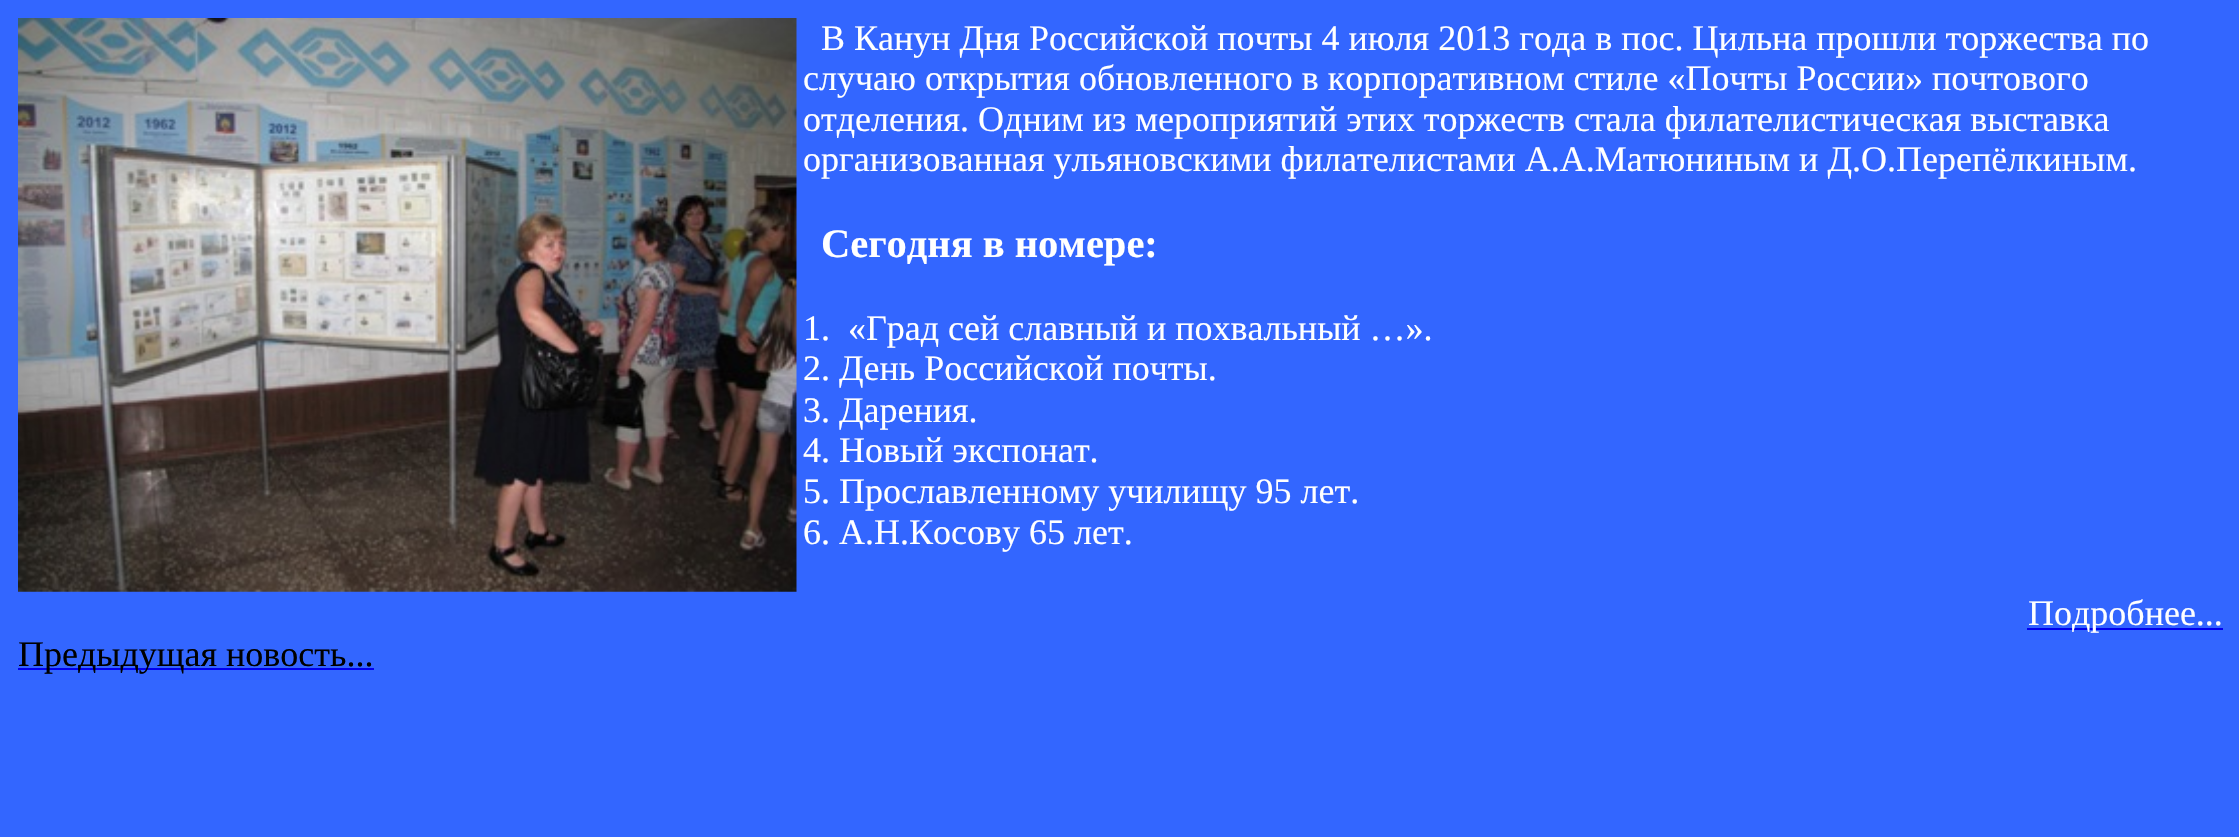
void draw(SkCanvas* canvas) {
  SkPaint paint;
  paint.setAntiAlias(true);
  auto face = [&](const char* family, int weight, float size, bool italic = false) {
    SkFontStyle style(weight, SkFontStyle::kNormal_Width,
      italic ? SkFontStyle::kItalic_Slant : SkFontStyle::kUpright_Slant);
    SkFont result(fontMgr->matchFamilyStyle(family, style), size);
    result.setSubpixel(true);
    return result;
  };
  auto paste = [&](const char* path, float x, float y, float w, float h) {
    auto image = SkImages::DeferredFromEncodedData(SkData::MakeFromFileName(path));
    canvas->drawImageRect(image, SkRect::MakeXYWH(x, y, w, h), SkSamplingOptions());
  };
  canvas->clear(0xff3366ff);
  paste("img/1.png", 18, 18, 779, 574);
  paint.setColor(0xff0000ee);
  canvas->drawRect(SkRect::MakeXYWH(2027, 628, 196, 2), paint);
  canvas->drawRect(SkRect::MakeXYWH(18, 668, 356, 2), paint);
  auto f0 = face("Liberation Serif", 400, 36);
  paint.setColor(0xffffffff);
  {
    const struct { const char* s; float x, y; } items[] = {
      {"В Канун Дня Российской почты 4 июля 2013 года в пос. Цильна прошли торжества по", 821, 50},
      {"случаю открытия обновленного в корпоративном стиле «Почты России» почтового", 803, 90},
      {"отделения. Одним из мероприятий этих торжеств стала филателистическая выставка", 803, 131},
      {"организованная ульяновскими филателистами А.А.Матюниным и Д.О.Перепёлкиным.", 803, 171},
    };
    for (auto [s, x, y] : items) {
      canvas->drawString(s, x, y, f0, paint);
    }
  }
  auto f1 = face("Liberation Serif", 700, 40.5f);
  canvas->drawString("Сегодня в номере:", 821, 257, f1, paint);
  {
    const struct { const char* s; float x, y; } items[] = {
      {"1.", 803, 340},
      {"«Град сей славный и похвальный …».", 848, 340},
      {"2. День Российской почты.", 803, 380},
      {"3. Дарения.", 803, 422},
      {"4. Новый экспонат.", 803, 462},
      {"5. Прославленному училищу 95 лет.", 803, 503},
      {"6. А.Н.Косову 65 лет.", 803, 544},
      {"Подробнее...", 2028, 625},
    };
    for (auto [s, x, y] : items) {
      canvas->drawString(s, x, y, f0, paint);
    }
  }
  paint.setColor(0xff000000);
  canvas->drawString("Предыдущая новость...", 18, 666, f0, paint);
}
